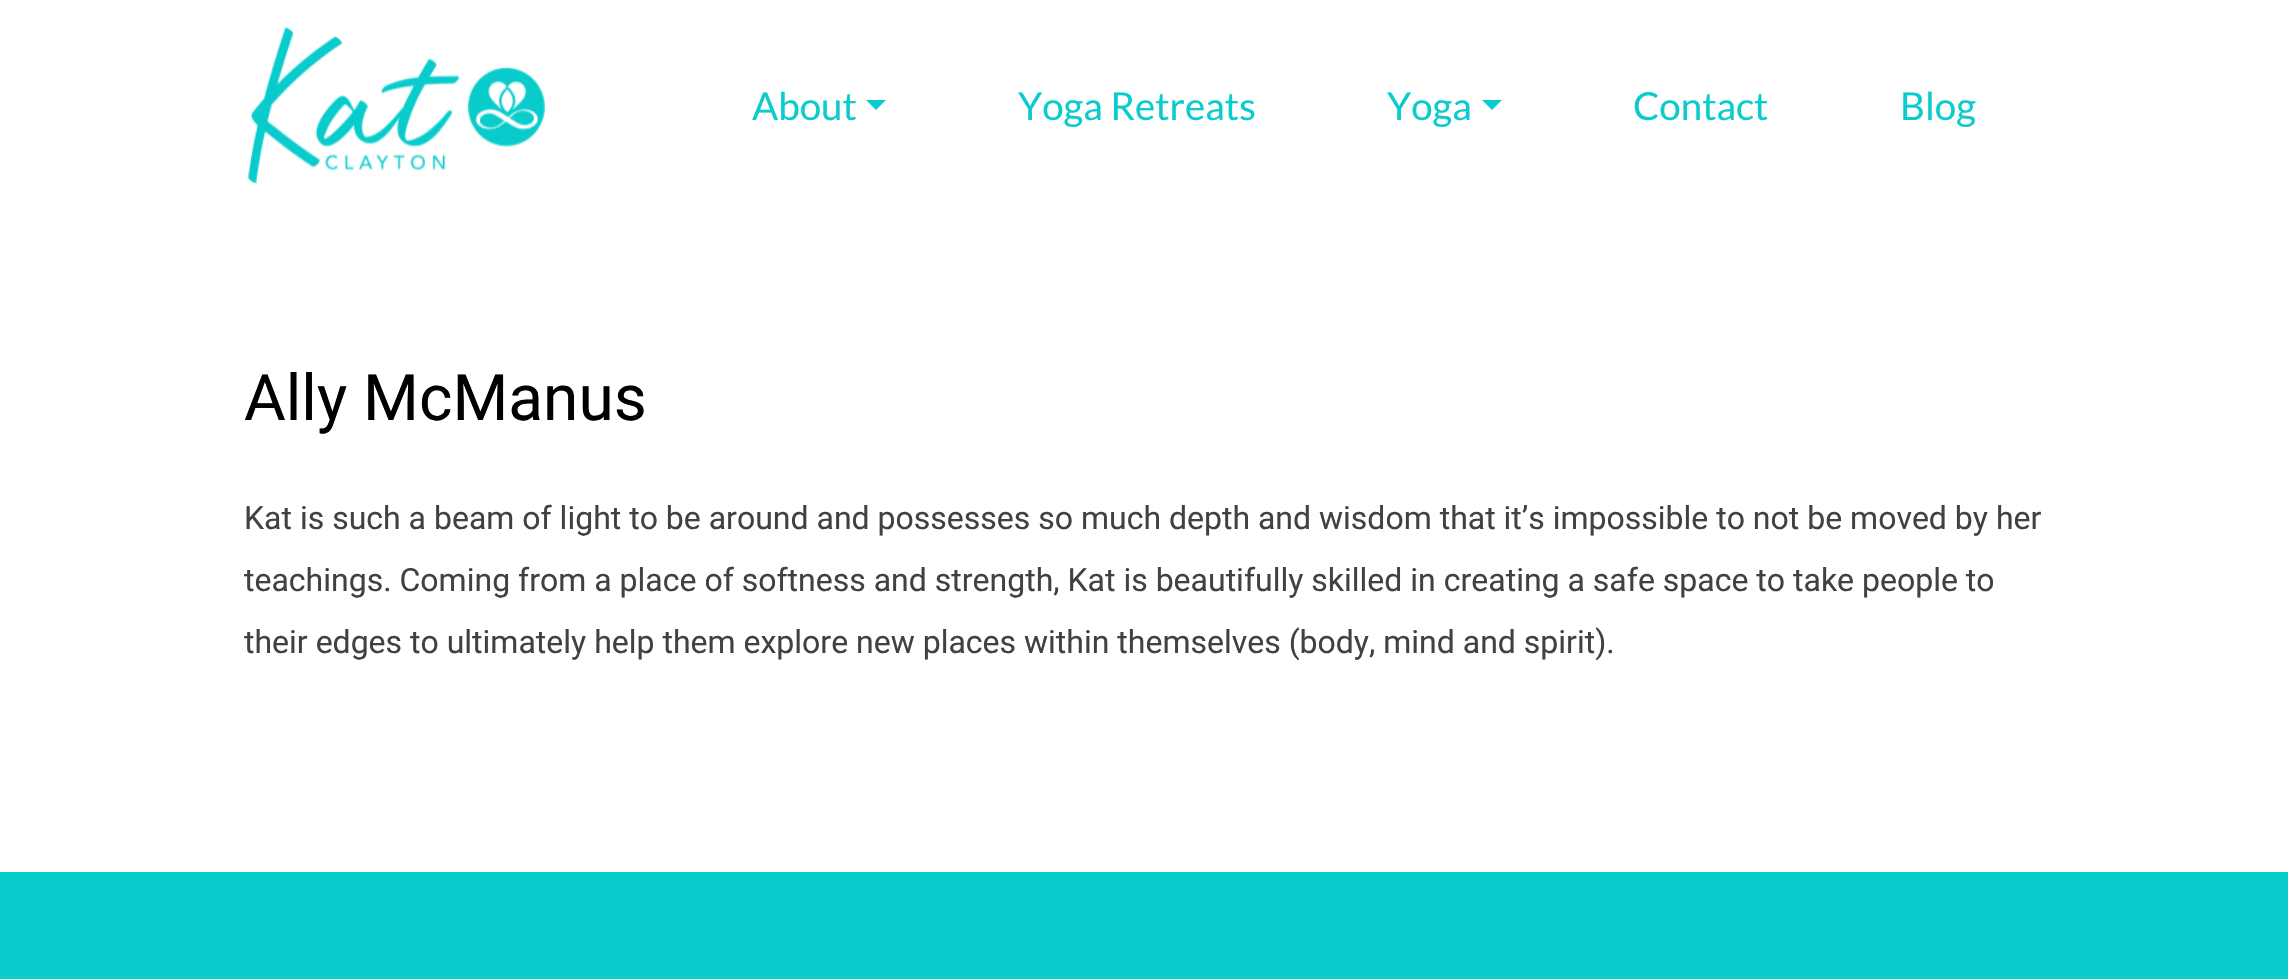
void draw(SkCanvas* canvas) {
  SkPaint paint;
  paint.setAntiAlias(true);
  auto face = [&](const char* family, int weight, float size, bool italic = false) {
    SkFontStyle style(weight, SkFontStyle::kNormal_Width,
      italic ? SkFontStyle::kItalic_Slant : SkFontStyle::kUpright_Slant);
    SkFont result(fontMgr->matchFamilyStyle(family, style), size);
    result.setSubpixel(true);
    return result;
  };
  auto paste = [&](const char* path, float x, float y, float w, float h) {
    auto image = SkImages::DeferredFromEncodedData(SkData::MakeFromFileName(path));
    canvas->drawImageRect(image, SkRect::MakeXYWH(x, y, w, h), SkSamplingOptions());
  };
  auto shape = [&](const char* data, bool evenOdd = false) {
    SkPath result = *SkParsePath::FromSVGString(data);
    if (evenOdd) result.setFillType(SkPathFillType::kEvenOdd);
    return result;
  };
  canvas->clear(0xffffffff);
  paste("img/1.png", 248, 27, 297, 157);
  paint.setColor(0xff0acccc);
  canvas->drawPath(shape("M866 100H886L876 110Z"), paint);
  canvas->drawPath(shape("M1482 100H1502L1492 110Z"), paint);
  canvas->drawRect(SkRect::MakeXYWH(0, 872, 2288, 107), paint);
  auto f0 = face("Lato", 400, 38.5f);
  {
    const struct { const char* s; float x, y; } items[] = {
      {"About", 752, 120},
      {"Yoga Retreats", 1018, 120},
      {"Yoga", 1387, 120},
      {"Contact", 1633, 120},
      {"Blog", 1900, 120},
    };
    for (auto [s, x, y] : items) {
      canvas->drawString(s, x, y, f0, paint);
    }
  }
  auto f1 = face("Roboto", 400, 64);
  paint.setColor(0xff000000);
  canvas->drawString("Ally McManus", 244, 420, f1, paint);
  auto f2 = face("Roboto", 400, 32);
  paint.setColor(0xff414141);
  {
    const struct { const char* s; float x, y; } items[] = {
      {"Kat is such a beam of light to be around and possesses so much depth and wisdom that it’s impossible to not be moved by her", 244, 529},
      {"teachings. Coming from a place of softness and strength, Kat is beautifully skilled in creating a safe space to take people to", 244, 591},
      {"their edges to ultimately help them explore new places within themselves (body, mind and spirit).", 244, 653},
    };
    for (auto [s, x, y] : items) {
      canvas->drawString(s, x, y, f2, paint);
    }
  }
}
